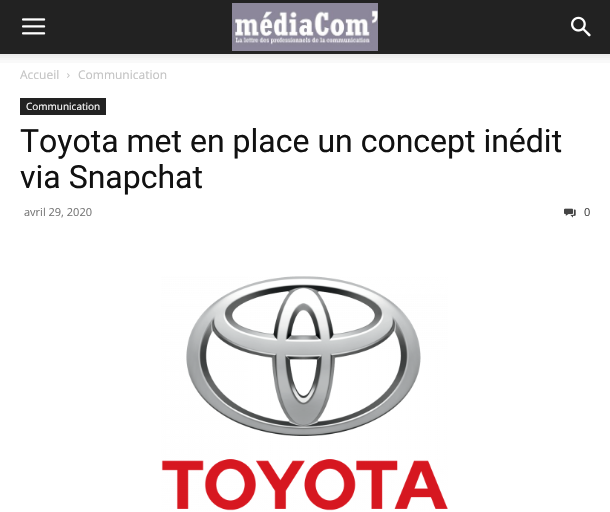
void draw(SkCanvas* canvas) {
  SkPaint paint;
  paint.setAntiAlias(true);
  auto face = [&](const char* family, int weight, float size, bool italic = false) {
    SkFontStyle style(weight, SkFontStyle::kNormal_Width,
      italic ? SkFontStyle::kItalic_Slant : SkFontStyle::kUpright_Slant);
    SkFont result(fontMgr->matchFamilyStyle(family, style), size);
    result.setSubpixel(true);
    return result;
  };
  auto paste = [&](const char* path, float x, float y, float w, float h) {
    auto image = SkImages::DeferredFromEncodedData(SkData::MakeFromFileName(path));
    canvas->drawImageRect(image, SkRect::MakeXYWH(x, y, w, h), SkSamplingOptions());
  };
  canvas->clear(0xffffffff);
  paint.setColor(0xff222222);
  canvas->drawRect(SkRect::MakeXYWH(0, 0, 610, 54), paint);
  paste("img/1.png", 22, 18, 24, 17);
  paste("img/2.png", 232, 3, 146, 48);
  paste("img/3.png", 571, 16, 20, 21);
  paste("img/4.png", 0, 54, 610, 9);
  paste("img/5.png", 67, 73, 3, 5);
  canvas->drawRect(SkRect::MakeXYWH(20, 98, 86, 17), paint);
  paste("img/6.png", 564, 208, 12, 10);
  paste("img/7.png", 161, 276, 287, 235);
  auto f0 = face("Open Sans", 400, 12);
  paint.setColor(0xffc3c3c3);
  canvas->drawString("Accueil", 20, 79, f0, paint);
  canvas->drawString("Communication", 78, 79, f0, paint);
  auto f1 = face("Open Sans", 400, 10);
  paint.setColor(0xffffffff);
  canvas->drawString("Communication", 26, 110, f1, paint);
  auto f2 = face("Roboto", 400, 32);
  paint.setColor(0xff111111);
  canvas->drawString("Toyota met en place un concept inédit", 20, 152, f2, paint);
  canvas->drawString("via Snapchat", 20, 188, f2, paint);
  auto f3 = face("Open Sans", 400, 11);
  paint.setColor(0xff767676);
  canvas->drawString("avril 29, 2020", 24, 216, f3, paint);
  paint.setColor(0xff444444);
  canvas->drawString("0", 584, 216, f3, paint);
}
